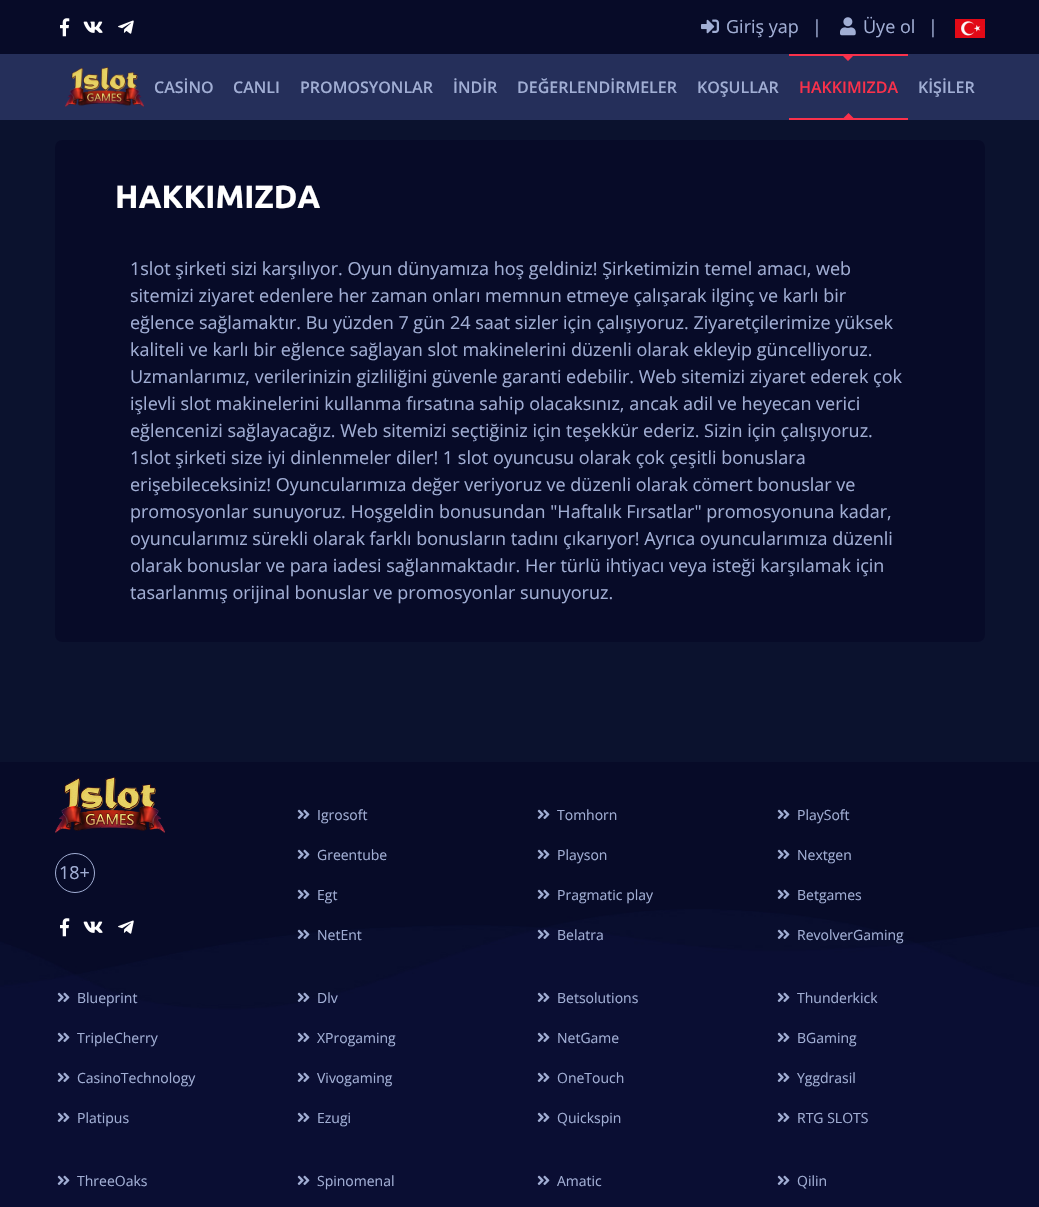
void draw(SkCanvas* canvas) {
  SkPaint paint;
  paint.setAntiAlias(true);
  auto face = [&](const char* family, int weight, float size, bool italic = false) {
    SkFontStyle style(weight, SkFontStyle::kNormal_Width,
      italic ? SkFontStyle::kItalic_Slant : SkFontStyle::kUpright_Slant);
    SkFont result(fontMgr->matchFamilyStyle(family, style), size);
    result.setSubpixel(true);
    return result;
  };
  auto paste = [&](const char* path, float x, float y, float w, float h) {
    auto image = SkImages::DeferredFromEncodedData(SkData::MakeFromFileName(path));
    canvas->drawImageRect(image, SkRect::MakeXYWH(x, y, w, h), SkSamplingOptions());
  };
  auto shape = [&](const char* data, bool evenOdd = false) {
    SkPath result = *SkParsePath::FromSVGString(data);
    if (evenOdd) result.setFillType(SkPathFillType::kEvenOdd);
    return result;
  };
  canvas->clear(0xff0b122e);
  paint.setColor(0xff070b28);
  canvas->drawRect(SkRect::MakeXYWH(0, 0, 1039, 54), paint);
  paste("img/1.png", 60, 18, 10, 19);
  paste("img/2.png", 83, 21, 20, 12);
  paste("img/3.png", 118, 20, 16, 14);
  paste("img/4.png", 701, 19, 18, 15);
  paste("img/5.png", 840, 17, 16, 19);
  paste("img/6.png", 955, 19, 30, 19);
  paint.setColor(0xff252f5a);
  canvas->drawRect(SkRect::MakeXYWH(0, 54, 1039, 66), paint);
  paste("img/7.png", 65, 67, 79, 40);
  paint.setColor(0xfff9314b);
  canvas->drawRect(SkRect::MakeXYWH(789, 54, 119, 2), paint);
  canvas->drawRect(SkRect::MakeXYWH(789, 118, 119, 2), paint);
  canvas->drawPath(shape("M853.5 118H843.5L848.5 113ZM843 56H853L848 61Z"), paint);
  paint.setColor(0xff070b28);
  canvas->drawRoundRect(SkRect::MakeXYWH(55, 140, 930, 502), 7, 7, paint);
  canvas->drawRect(SkRect::MakeXYWH(0, 762, 1039, 147), paint);
  paste("img/8.png", 0, 909, 1039, 298);
  paste("img/9.png", 55, 777, 110, 56);
  paint.setStroke(true);
  paint.setStrokeWidth(1);
  paint.setColor(0xffa1aed4);
  canvas->drawCircle(75, 873, 19.5f, paint);
  paste("img/1.png", 60, 918, 10, 19);
  paste("img/2.png", 83, 921, 20, 12);
  paste("img/3.png", 118, 920, 16, 14);
  paste("img/10.png", 297, 809, 13, 10);
  paste("img/10.png", 297, 849, 13, 10);
  paste("img/10.png", 297, 889, 13, 10);
  paste("img/11.png", 297, 929, 13, 10);
  paste("img/10.png", 537, 809, 13, 10);
  paste("img/10.png", 537, 849, 13, 10);
  paste("img/10.png", 537, 889, 13, 10);
  paste("img/12.png", 537, 929, 13, 10);
  paste("img/10.png", 777, 809, 13, 10);
  paste("img/10.png", 777, 849, 13, 10);
  paste("img/10.png", 777, 889, 13, 10);
  paste("img/13.png", 777, 929, 13, 10);
  paste("img/14.png", 57, 992, 13, 10);
  paste("img/14.png", 57, 1032, 13, 10);
  paste("img/14.png", 57, 1072, 13, 10);
  paste("img/14.png", 57, 1112, 13, 10);
  paste("img/15.png", 297, 992, 13, 10);
  paste("img/14.png", 297, 1032, 13, 10);
  paste("img/14.png", 297, 1072, 13, 10);
  paste("img/14.png", 297, 1112, 13, 10);
  paste("img/14.png", 537, 992, 13, 10);
  paste("img/14.png", 537, 1032, 13, 10);
  paste("img/14.png", 537, 1072, 13, 10);
  paste("img/14.png", 537, 1112, 13, 10);
  paste("img/14.png", 777, 992, 13, 10);
  paste("img/14.png", 777, 1032, 13, 10);
  paste("img/14.png", 777, 1072, 13, 10);
  paste("img/14.png", 777, 1112, 13, 10);
  paste("img/14.png", 57, 1175, 13, 10);
  paste("img/14.png", 297, 1175, 13, 10);
  paste("img/14.png", 537, 1175, 13, 10);
  paste("img/14.png", 777, 1175, 13, 10);
  auto f0 = face("Open Sans", 400, 18);
  paint.setStroke(false);
  {
    const struct { const char* s; float x, y; } items[] = {
      {"Giriş yap", 726, 33},
      {"|", 812, 33},
      {"Üye ol", 863, 33},
      {"|", 928, 33},
    };
    for (auto [s, x, y] : items) {
      canvas->drawString(s, x, y, f0, paint);
    }
  }
  auto f1 = face("Open Sans", 600, 16);
  {
    const struct { const char* s; float x, y; } items[] = {
      {"CASİNO", 154, 93},
      {"CANLI", 233, 93},
      {"PROMOSYONLAR", 300, 93},
      {"İNDİR", 453, 93},
      {"DEĞERLENDİRMELER", 517, 93},
      {"KOŞULLAR", 697, 93},
    };
    for (auto [s, x, y] : items) {
      canvas->drawString(s, x, y, f1, paint);
    }
  }
  paint.setColor(0xfff9314b);
  canvas->drawString("HAKKIMIZDA", 799, 93, f1, paint);
  paint.setColor(0xffa1aed4);
  canvas->drawString("KİŞİLER", 918, 93, f1, paint);
  auto f2 = face("Ubuntu", 700, 32);
  paint.setColor(0xffffffff);
  canvas->drawString("HAKKIMIZDA", 115, 208, f2, paint);
  paint.setColor(0xffa1aed4);
  {
    const struct { const char* s; float x, y; } items[] = {
      {"1slot şirketi sizi karşılıyor. Oyun dünyamıza hoş geldiniz! Şirketimizin temel amacı, web", 130, 275},
      {"sitemizi ziyaret edenlere her zaman onları memnun etmeye çalışarak ilginç ve karlı bir", 130, 302},
      {"eğlence sağlamaktır. Bu yüzden 7 gün 24 saat sizler için çalışıyoruz. Ziyaretçilerimize yüksek", 130, 329},
      {"kaliteli ve karlı bir eğlence sağlayan slot makinelerini düzenli olarak ekleyip güncelliyoruz.", 130, 356},
      {"Uzmanlarımız, verilerinizin gizliliğini güvenle garanti edebilir. Web sitemizi ziyaret ederek çok", 130, 383},
      {"işlevli slot makinelerini kullanma fırsatına sahip olacaksınız, ancak adil ve heyecan verici", 130, 410},
      {"eğlencenizi sağlayacağız. Web sitemizi seçtiğiniz için teşekkür ederiz. Sizin için çalışıyoruz.", 130, 437},
      {"1slot şirketi size iyi dinlenmeler diler! 1 slot oyuncusu olarak çok çeşitli bonuslara", 130, 464},
      {"erişebileceksiniz! Oyuncularımıza değer veriyoruz ve düzenli olarak cömert bonuslar ve", 130, 491},
      {"promosyonlar sunuyoruz. Hoşgeldin bonusundan \"Haftalık Fırsatlar\" promosyonuna kadar,", 130, 518},
      {"oyuncularımız sürekli olarak farklı bonusların tadını çıkarıyor! Ayrıca oyuncularımıza düzenli", 130, 545},
      {"olarak bonuslar ve para iadesi sağlanmaktadır. Her türlü ihtiyacı veya isteği karşılamak için", 130, 572},
      {"tasarlanmış orijinal bonuslar ve promosyonlar sunuyoruz.", 130, 599},
      {"18+", 59, 879},
    };
    for (auto [s, x, y] : items) {
      canvas->drawString(s, x, y, f0, paint);
    }
  }
  auto f3 = face("Open Sans", 400, 14);
  {
    const struct { const char* s; float x, y; } items[] = {
      {"Igrosoft", 317, 820},
      {"Greentube", 317, 860},
      {"Egt", 317, 900},
      {"NetEnt", 317, 940},
      {"Tomhorn", 557, 820},
      {"Playson", 557, 860},
      {"Pragmatic play", 557, 900},
      {"Belatra", 557, 940},
      {"PlaySoft", 797, 820},
      {"Nextgen", 797, 860},
      {"Betgames", 797, 900},
      {"RevolverGaming", 797, 940},
      {"Blueprint", 77, 1003},
      {"TripleCherry", 77, 1043},
      {"CasinoTechnology", 77, 1083},
      {"Platipus", 77, 1123},
      {"Dlv", 317, 1003},
      {"XProgaming", 317, 1043},
      {"Vivogaming", 317, 1083},
      {"Ezugi", 317, 1123},
      {"Betsolutions", 557, 1003},
      {"NetGame", 557, 1043},
      {"OneTouch", 557, 1083},
      {"Quickspin", 557, 1123},
      {"Thunderkick", 797, 1003},
      {"BGaming", 797, 1043},
      {"Yggdrasil", 797, 1083},
      {"RTG SLOTS", 797, 1123},
      {"ThreeOaks", 77, 1186},
      {"Spinomenal", 317, 1186},
      {"Amatic", 557, 1186},
      {"Qilin", 797, 1186},
    };
    for (auto [s, x, y] : items) {
      canvas->drawString(s, x, y, f3, paint);
    }
  }
}
